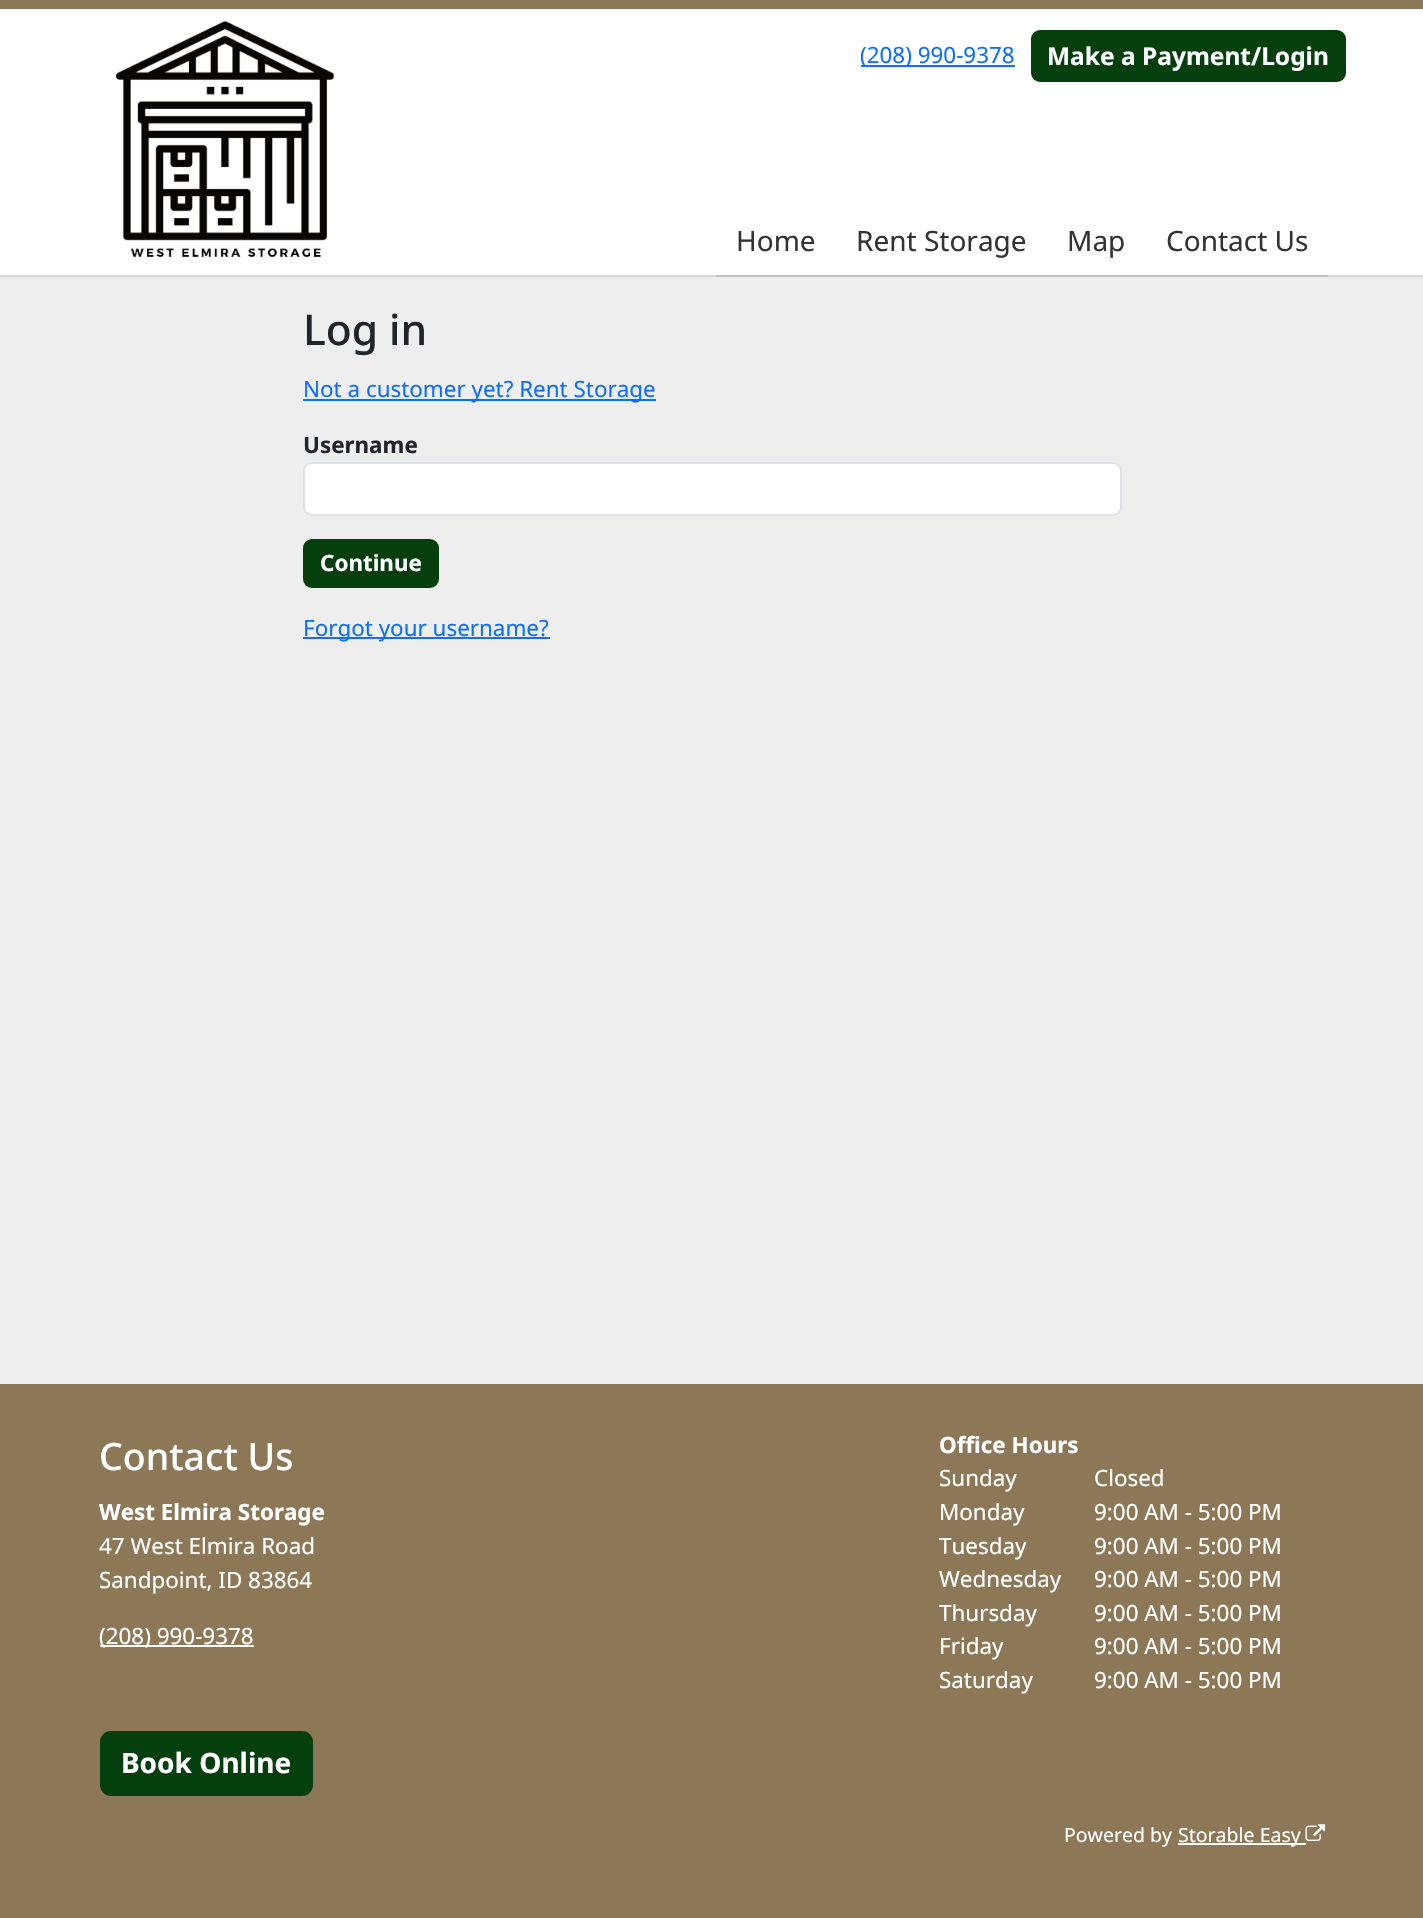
void draw(SkCanvas* canvas) {
  SkPaint paint;
  paint.setAntiAlias(true);
  auto face = [&](const char* family, int weight, float size, bool italic = false) {
    SkFontStyle style(weight, SkFontStyle::kNormal_Width,
      italic ? SkFontStyle::kItalic_Slant : SkFontStyle::kUpright_Slant);
    SkFont result(fontMgr->matchFamilyStyle(family, style), size);
    result.setSubpixel(true);
    return result;
  };
  auto paste = [&](const char* path, float x, float y, float w, float h) {
    auto image = SkImages::DeferredFromEncodedData(SkData::MakeFromFileName(path));
    canvas->drawImageRect(image, SkRect::MakeXYWH(x, y, w, h), SkSamplingOptions());
  };
  auto shape = [&](const char* data, bool evenOdd = false) {
    SkPath result = *SkParsePath::FromSVGString(data);
    if (evenOdd) result.setFillType(SkPathFillType::kEvenOdd);
    return result;
  };
  canvas->clear(0xffeeeeee);
  paint.setColor(0xffd6d6d6);
  canvas->drawPath(shape("M0 275V277H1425V2H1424V275Z"), paint);
  paint.setColor(0xffffffff);
  canvas->drawRect(SkRect::MakeXYWH(0, 9, 1423, 266), paint);
  paint.setColor(0xff8c7757);
  canvas->drawRect(SkRect::MakeXYWH(0, 0, 1423, 9), paint);
  paste("img/1.png", 115, 21, 220, 237);
  paint.setColor(0xff0d6efd);
  canvas->drawRect(SkRect::MakeXYWH(861, 65, 154, 2), paint);
  paint.setColor(0xff053f0d);
  canvas->drawRoundRect(SkRect::MakeXYWH(1031, 30, 315, 52), 9, 9, paint);
  paint.setColor(0xffc1c1c1);
  canvas->drawRect(SkRect::MakeXYWH(716, 275, 612, 2), paint);
  paint.setColor(0xff0d6efd);
  canvas->drawRect(SkRect::MakeXYWH(303, 399, 353, 2), paint);
  paint.setColor(0xffffffff);
  canvas->drawRoundRect(SkRect::MakeXYWH(304, 463, 817, 52), 8, 8, paint);
  paint.setStroke(true);
  paint.setStrokeWidth(2);
  paint.setColor(0xffdee2e6);
  canvas->drawRoundRect(SkRect::MakeXYWH(304, 463, 817, 52), 8, 8, paint);
  paint.setStroke(false);
  paint.setColor(0xff053f0d);
  canvas->drawRoundRect(SkRect::MakeXYWH(303, 539, 136, 49), 9, 9, paint);
  {
    const struct { float x, y, w, h; SkColor color; } items[] = {
      {303, 637, 247, 2, 0xff0d6efd},
      {0, 1384, 1423, 534, 0xff8c7757},
      {100, 1645, 154, 2, 0xffffffff},
    };
    for (auto [x, y, w, h, color] : items) {
      paint.setColor(color);
      canvas->drawRect(SkRect::MakeXYWH(x, y, w, h), paint);
    }
  }
  paint.setColor(0xff053f0d);
  canvas->drawRoundRect(SkRect::MakeXYWH(100, 1731, 213, 65), 11, 11, paint);
  paint.setColor(0xffffffff);
  canvas->drawRect(SkRect::MakeXYWH(1178, 1843, 128, 2), paint);
  paste("img/2.png", 1305, 1824, 21, 17);
  auto f0 = face("Noto Sans", 400, 22.4f);
  paint.setColor(0xff0d6efd);
  canvas->drawString("(208) 990-9378", 860, 63, f0, paint);
  auto f1 = face("Noto Sans", 700, 24.5f);
  paint.setColor(0xffffffff);
  canvas->drawString("Make a Payment/Login", 1047, 65, f1, paint);
  auto f2 = face("Noto Sans", 400, 28);
  paint.setColor(0xff333333);
  {
    const struct { const char* s; float x, y; } items[] = {
      {"Home", 736, 251},
      {"Rent Storage", 856, 251},
      {"Map", 1067, 251},
      {"Contact Us", 1166, 251},
    };
    for (auto [s, x, y] : items) {
      canvas->drawString(s, x, y, f2, paint);
    }
  }
  auto f3 = face("Noto Sans", 500, 42.5f);
  paint.setColor(0xff212529);
  canvas->drawString("Log in", 303, 345, f3, paint);
  paint.setColor(0xff0d6efd);
  canvas->drawString("Not a customer yet? Rent Storage", 303, 397, f0, paint);
  auto f4 = face("Noto Sans", 700, 22.4f);
  paint.setColor(0xff212529);
  canvas->drawString("Username", 303, 453, f4, paint);
  paint.setColor(0xffffffff);
  canvas->drawString("Continue", 320, 571, f4, paint);
  paint.setColor(0xff0d6efd);
  canvas->drawString("Forgot your username?", 303, 636, f0, paint);
  auto f5 = face("Noto Sans", 500, 37.5f);
  paint.setColor(0xffffffff);
  canvas->drawString("Contact Us", 99, 1470, f5, paint);
  canvas->drawString("West Elmira Storage", 99, 1520, f4, paint);
  {
    const struct { const char* s; float x, y; } items[] = {
      {"47 West Elmira Road", 99, 1554},
      {"Sandpoint, ID 83864", 99, 1588},
      {"(208) 990-9378", 99, 1644},
    };
    for (auto [s, x, y] : items) {
      canvas->drawString(s, x, y, f0, paint);
    }
  }
  canvas->drawString("Office Hours", 939, 1453, f4, paint);
  {
    const struct { const char* s; float x, y; } items[] = {
      {"Sunday", 939, 1486},
      {"Closed", 1094, 1486},
      {"Monday", 939, 1520},
      {"9:00 AM - 5:00 PM", 1094, 1520},
      {"Tuesday", 939, 1554},
      {"9:00 AM - 5:00 PM", 1094, 1554},
      {"Wednesday", 939, 1587},
      {"9:00 AM - 5:00 PM", 1094, 1587},
      {"Thursday", 939, 1621},
      {"9:00 AM - 5:00 PM", 1094, 1621},
      {"Friday", 939, 1654},
      {"9:00 AM - 5:00 PM", 1094, 1654},
      {"Saturday", 939, 1688},
      {"9:00 AM - 5:00 PM", 1094, 1688},
    };
    for (auto [s, x, y] : items) {
      canvas->drawString(s, x, y, f0, paint);
    }
  }
  auto f6 = face("Noto Sans", 700, 28);
  canvas->drawString("Book Online", 121, 1773, f6, paint);
  auto f7 = face("Noto Sans", 400, 19.5f);
  canvas->drawString("Powered by", 1064, 1842, f7, paint);
  canvas->drawString("Storable Easy", 1178, 1842, f7, paint);
}
